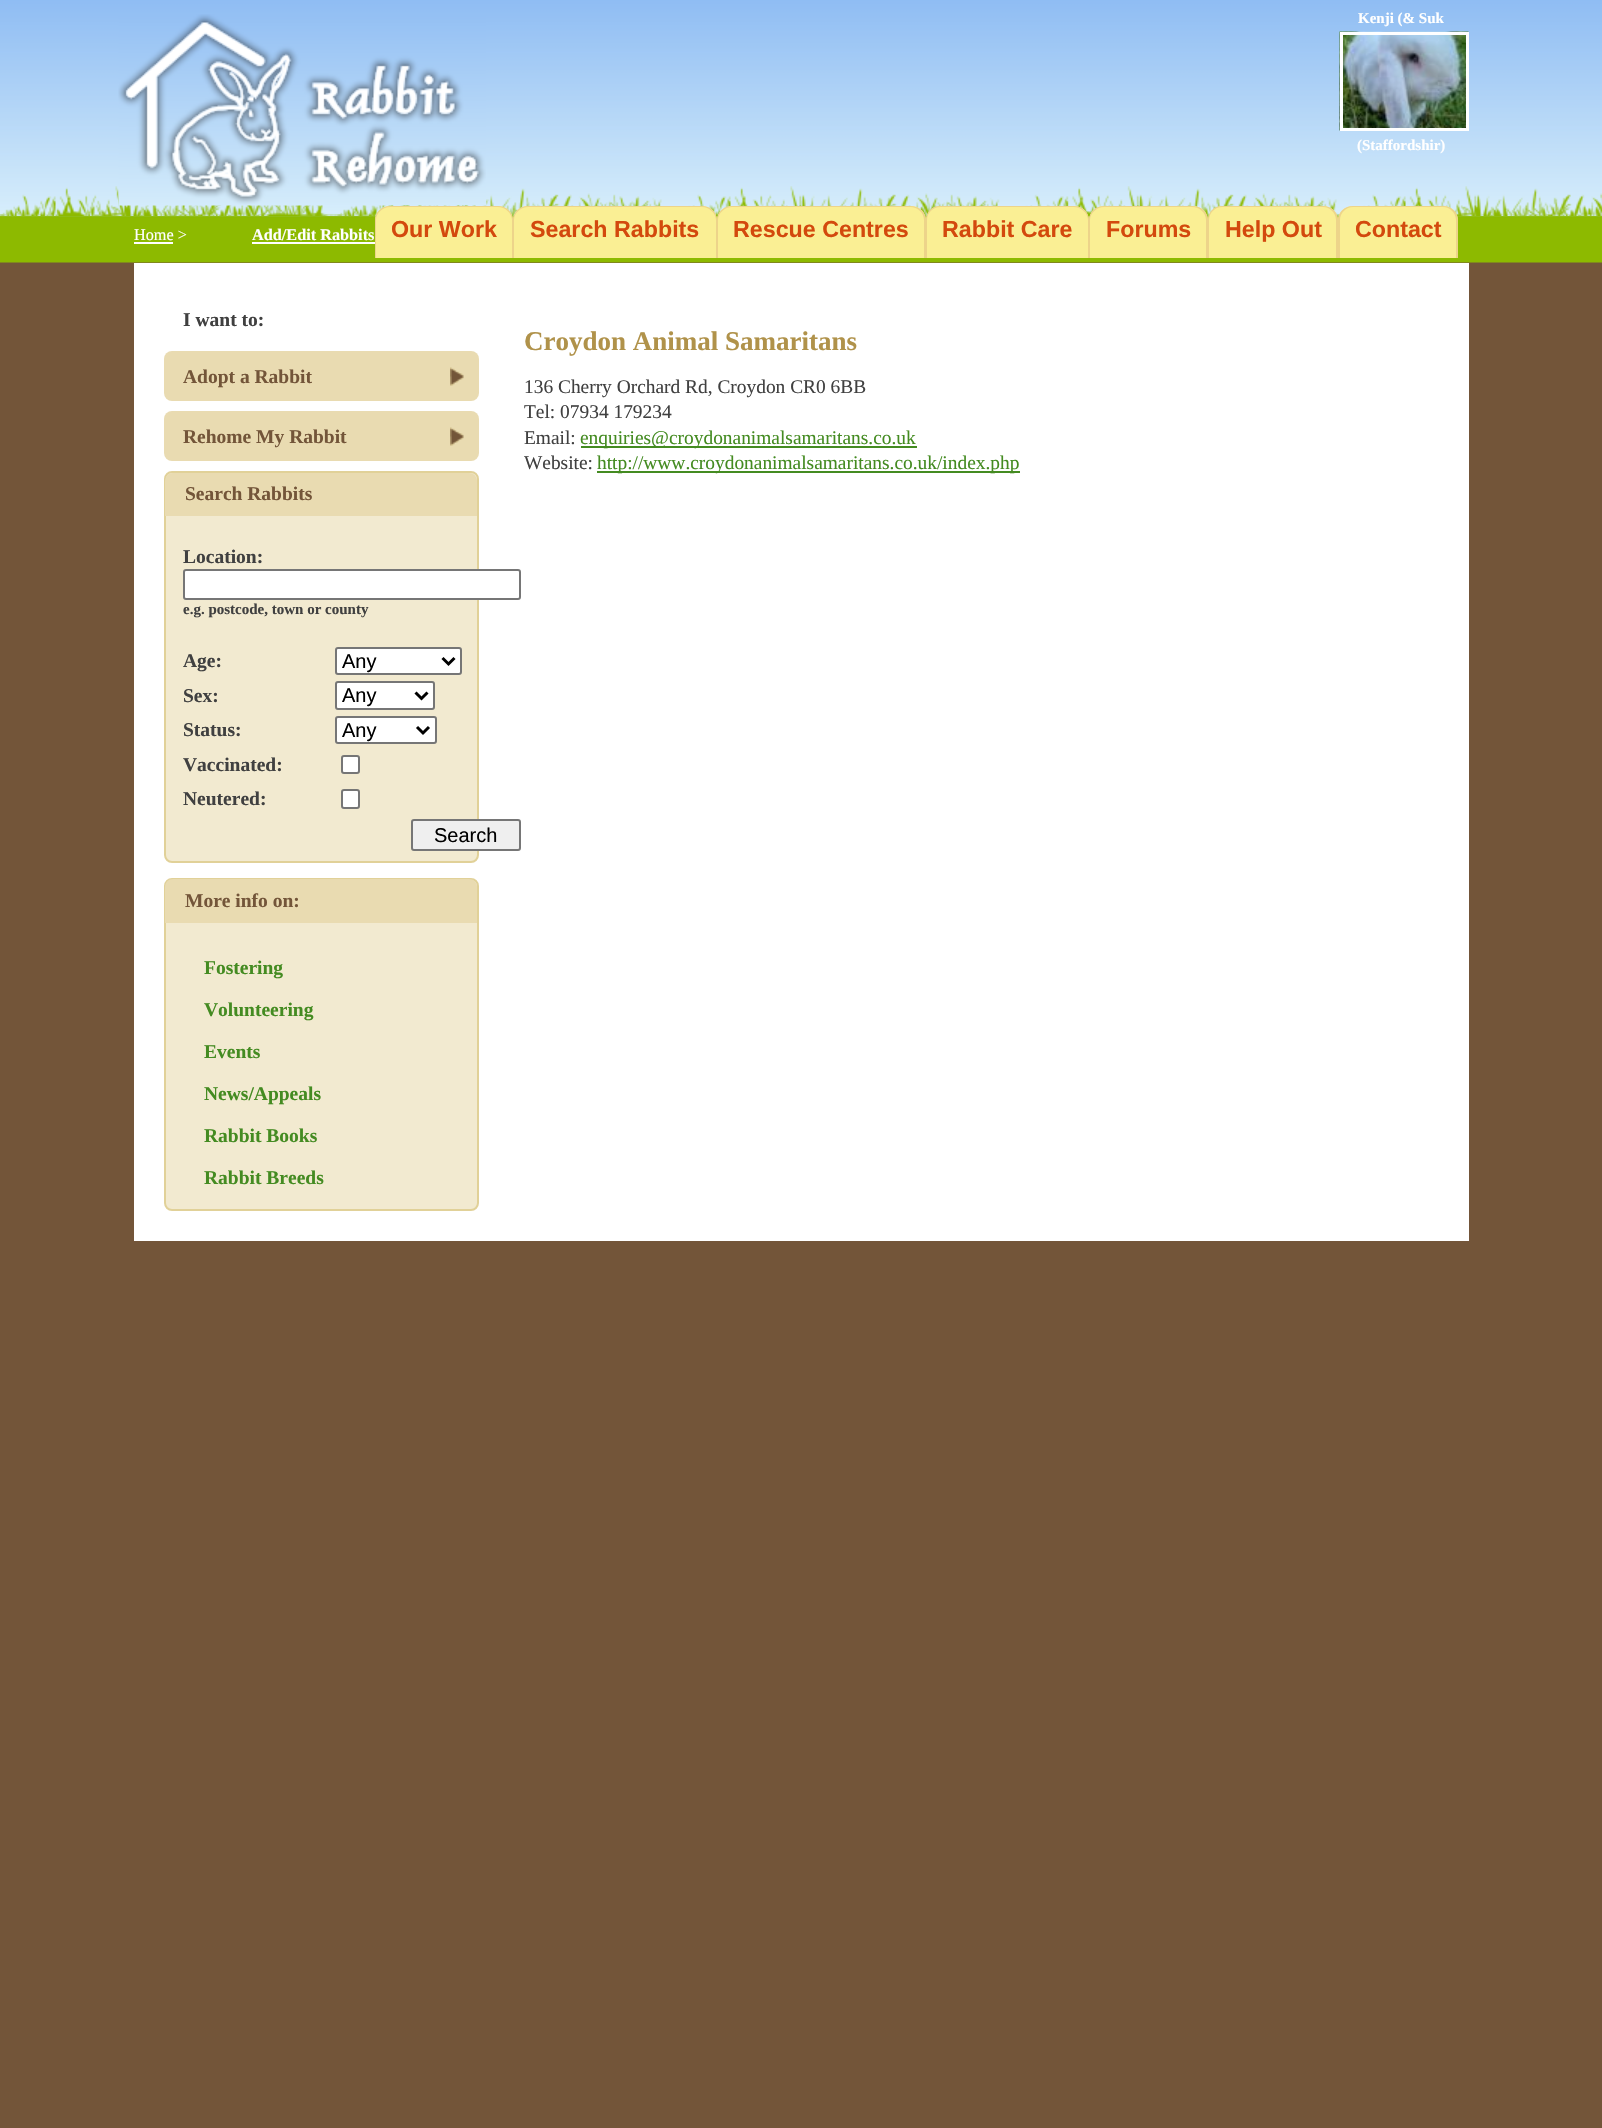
void draw(SkCanvas* canvas) {
  SkPaint paint;
  paint.setAntiAlias(true);
  auto face = [&](const char* family, int weight, float size, bool italic = false) {
    SkFontStyle style(weight, SkFontStyle::kNormal_Width,
      italic ? SkFontStyle::kItalic_Slant : SkFontStyle::kUpright_Slant);
    SkFont result(fontMgr->matchFamilyStyle(family, style), size);
    result.setSubpixel(true);
    return result;
  };
  auto paste = [&](const char* path, float x, float y, float w, float h) {
    auto image = SkImages::DeferredFromEncodedData(SkData::MakeFromFileName(path));
    canvas->drawImageRect(image, SkRect::MakeXYWH(x, y, w, h), SkSamplingOptions());
  };
  auto shape = [&](const char* data, bool evenOdd = false) {
    SkPath result = *SkParsePath::FromSVGString(data);
    if (evenOdd) result.setFillType(SkPathFillType::kEvenOdd);
    return result;
  };
  canvas->clear(0xff735539);
  paste("img/1.png", 0, 0, 1602, 263);
  paste("img/2.png", 0, 186, 1602, 30);
  paint.setColor(0xffffffff);
  canvas->drawRect(SkRect::MakeXYWH(134, 242, 39, 2), paint);
  canvas->drawRect(SkRect::MakeXYWH(252, 242, 123, 2), paint);
  paste("img/3.png", 118, 14, 368, 192);
  paste("img/4.png", 1339, 31, 130, 100);
  paint.setStroke(true);
  paint.setStrokeWidth(3);
  canvas->drawRect(SkRect::MakeXYWH(1341.5f, 33.5f, 126, 96), paint);
  paint.setStroke(false);
  paint.setColor(0xfffaef94);
  canvas->drawPath(shape("M390 206H498C506.5 206 513 212.5 513 221V258H375V221C375 212.5 381.5 206 390 206Z"), paint);
  paint.setColor(0xffedd48a);
  canvas->drawPath(shape("M390 206H498C506 206 513 212 513 220V258H375V220C375 212 382 206 390 206ZM390 207H498C505 207 512 213 512 220V258H376V220C376 213 383 207 390 207Z", true), paint);
  paint.setColor(0xfffaef94);
  canvas->drawPath(shape("M528 206H702C710.5 206 717 212.5 717 221V258H513V221C513 212.5 519.5 206 528 206Z"), paint);
  paint.setColor(0xffedd48a);
  canvas->drawPath(shape("M528 206H702C710 206 717 212 717 220V258H513V220C513 212 520 206 528 206ZM528 207H702C709 207 716 213 716 220V258H514V220C514 213 521 207 528 207Z", true), paint);
  paint.setColor(0xfffaef94);
  canvas->drawPath(shape("M732 206H911C919.5 206 926 212.5 926 221V258H717V221C717 212.5 723.5 206 732 206Z"), paint);
  paint.setColor(0xffedd48a);
  canvas->drawPath(shape("M732 206H910C919 206 926 212 926 220V258H717V220C717 212 724 206 732 206ZM732 207H910C918 207 924 213 924 220V258H718V220C718 213 725 207 732 207Z", true), paint);
  paint.setColor(0xfffaef94);
  canvas->drawPath(shape("M941 206H1074C1082.5 206 1089 212.5 1089 221V258H926V221C926 212.5 932.5 206 941 206Z"), paint);
  paint.setColor(0xffedd48a);
  canvas->drawPath(shape("M940 206H1074C1082 206 1089 212 1089 220V258H926V220C926 212 932 206 940 206ZM940 207H1074C1081 207 1088 213 1088 220V258H927V220C927 213 933 207 940 207Z", true), paint);
  paint.setColor(0xfffaef94);
  canvas->drawPath(shape("M1104 206H1193C1201.5 206 1208 212.5 1208 221V258H1089V221C1089 212.5 1095.5 206 1104 206Z"), paint);
  paint.setColor(0xffedd48a);
  canvas->drawPath(shape("M1104 206H1192C1201 206 1208 212 1208 220V258H1089V220C1089 212 1096 206 1104 206ZM1104 207H1192C1200 207 1206 213 1206 220V258H1090V220C1090 213 1097 207 1104 207Z", true), paint);
  paint.setColor(0xfffaef94);
  canvas->drawPath(shape("M1223 206H1323C1331.5 206 1338 212.5 1338 221V258H1208V221C1208 212.5 1214.5 206 1223 206Z"), paint);
  paint.setColor(0xffedd48a);
  canvas->drawPath(shape("M1222 206H1323C1331 206 1338 212 1338 220V258H1208V220C1208 212 1214 206 1222 206ZM1222 207H1323C1330 207 1336 213 1336 220V258H1209V220C1209 213 1215 207 1222 207Z", true), paint);
  paint.setColor(0xfffaef94);
  canvas->drawPath(shape("M1353 206H1443C1451.5 206 1458 212.5 1458 221V258H1338V221C1338 212.5 1344.5 206 1353 206Z"), paint);
  paint.setColor(0xffedd48a);
  canvas->drawPath(shape("M1353 206H1443C1451 206 1458 212 1458 220V258H1338V220C1338 212 1345 206 1353 206ZM1353 207H1443C1450 207 1456 213 1456 220V258H1340V220C1340 213 1346 207 1353 207Z", true), paint);
  paint.setColor(0xffffffff);
  canvas->drawRect(SkRect::MakeXYWH(134, 263, 1335, 978), paint);
  paint.setColor(0xffe9dbb1);
  canvas->drawRoundRect(SkRect::MakeXYWH(164, 351, 315, 50), 8, 8, paint);
  paste("img/5.png", 450, 367, 14, 19);
  canvas->drawRoundRect(SkRect::MakeXYWH(164, 411, 315, 50), 8, 8, paint);
  paste("img/5.png", 450, 427, 14, 19);
  paint.setColor(0xfff2ead0);
  canvas->drawRoundRect(SkRect::MakeXYWH(165, 472, 313, 390), 7, 7, paint);
  paint.setStroke(true);
  paint.setStrokeWidth(2);
  paint.setColor(0xffe1d198);
  canvas->drawRoundRect(SkRect::MakeXYWH(165, 472, 313, 390), 7, 7, paint);
  paint.setStroke(false);
  paint.setColor(0xffe9dbb1);
  canvas->drawPath(shape("M173 473H469C473.5 473 477 476.5 477 481V516H165V481C165 476.5 168.5 473 173 473Z"), paint);
  paint.setColor(0xffffffff);
  canvas->drawRoundRect(SkRect::MakeXYWH(184, 570, 336, 29), 2, 2, paint);
  paint.setStroke(true);
  paint.setColor(0xff767676);
  canvas->drawRoundRect(SkRect::MakeXYWH(184, 570, 336, 29), 2, 2, paint);
  paint.setStroke(false);
  paint.setColor(0xffffffff);
  canvas->drawRoundRect(SkRect::MakeXYWH(336, 648, 125, 26), 2, 2, paint);
  paint.setStroke(true);
  paint.setColor(0xff767676);
  canvas->drawRoundRect(SkRect::MakeXYWH(336, 648, 125, 26), 2, 2, paint);
  paint.setStrokeWidth(3);
  paint.setColor(0xff000000);
  canvas->drawPath(shape("M442.5 658L448.5 664L454.5 658"), paint);
  paint.setStroke(false);
  paint.setColor(0xffffffff);
  canvas->drawRoundRect(SkRect::MakeXYWH(336, 682, 98, 27), 2, 2, paint);
  paint.setStroke(true);
  paint.setStrokeWidth(2);
  paint.setColor(0xff767676);
  canvas->drawRoundRect(SkRect::MakeXYWH(336, 682, 98, 27), 2, 2, paint);
  paint.setStrokeWidth(3);
  paint.setColor(0xff000000);
  canvas->drawPath(shape("M415.5 692.5L421.5 698.5L427.5 692.5"), paint);
  paint.setStroke(false);
  paint.setColor(0xffffffff);
  canvas->drawRoundRect(SkRect::MakeXYWH(336, 717, 100, 26), 2, 2, paint);
  paint.setStroke(true);
  paint.setStrokeWidth(2);
  paint.setColor(0xff767676);
  canvas->drawRoundRect(SkRect::MakeXYWH(336, 717, 100, 26), 2, 2, paint);
  paint.setStrokeWidth(3);
  paint.setColor(0xff000000);
  canvas->drawPath(shape("M417 727L423 733L429 727"), paint);
  paint.setStroke(false);
  paint.setColor(0xffffffff);
  canvas->drawRoundRect(SkRect::MakeXYWH(342, 756, 17, 17), 2, 2, paint);
  paint.setStroke(true);
  paint.setStrokeWidth(2);
  paint.setColor(0xff767676);
  canvas->drawRoundRect(SkRect::MakeXYWH(342, 756, 17, 17), 2, 2, paint);
  paint.setStroke(false);
  paint.setColor(0xffffffff);
  canvas->drawRoundRect(SkRect::MakeXYWH(342, 790, 17, 18), 2, 2, paint);
  paint.setStroke(true);
  paint.setColor(0xff767676);
  canvas->drawRoundRect(SkRect::MakeXYWH(342, 790, 17, 18), 2, 2, paint);
  paint.setStroke(false);
  paint.setColor(0xffefefef);
  canvas->drawRoundRect(SkRect::MakeXYWH(412, 820, 108, 30), 2, 2, paint);
  paint.setStroke(true);
  paint.setColor(0xff767676);
  canvas->drawRoundRect(SkRect::MakeXYWH(412, 820, 108, 30), 2, 2, paint);
  paint.setStroke(false);
  paint.setColor(0xfff2ead0);
  canvas->drawRoundRect(SkRect::MakeXYWH(165, 879, 313, 331), 7, 7, paint);
  paint.setStroke(true);
  paint.setColor(0xffe1d198);
  canvas->drawRoundRect(SkRect::MakeXYWH(165, 879, 313, 331), 7, 7, paint);
  paint.setStroke(false);
  paint.setColor(0xffe9dbb1);
  canvas->drawPath(shape("M173 879H469C473.5 879 477 882.5 477 887V923H165V887C165 882.5 168.5 879 173 879Z"), paint);
  paint.setColor(0xff448b21);
  canvas->drawRect(SkRect::MakeXYWH(581, 446, 336, 2), paint);
  canvas->drawRect(SkRect::MakeXYWH(597, 471, 423, 2), paint);
  auto f0 = face("Liberation Serif", 400, 16.25f);
  paint.setColor(0xffffffff);
  canvas->drawString("Home >", 134, 240, f0, paint);
  auto f1 = face("Liberation Serif", 700, 16.25f);
  canvas->drawString("Add/Edit Rabbits", 252, 240, f1, paint);
  auto f2 = face("Liberation Serif", 700, 15);
  canvas->drawString("Kenji (& Suk", 1358, 23, f2, paint);
  canvas->drawString("(Staffordshir)", 1357, 150, f2, paint);
  auto f3 = face("Liberation Sans", 700, 23.25f);
  paint.setColor(0xffd3490d);
  {
    const struct { const char* s; float x, y; } items[] = {
      {"Our Work", 391, 237},
      {"Search Rabbits", 530, 237},
      {"Rescue Centres", 733, 237},
      {"Rabbit Care", 942, 237},
      {"Forums", 1106, 237},
      {"Help Out", 1225, 237},
      {"Contact", 1355, 237},
    };
    for (auto [s, x, y] : items) {
      canvas->drawString(s, x, y, f3, paint);
    }
  }
  auto f4 = face("Liberation Serif", 700, 19.5f);
  paint.setColor(0xff404040);
  canvas->drawString("I want to:", 183, 326, f4, paint);
  paint.setColor(0xff735539);
  {
    const struct { const char* s; float x, y; } items[] = {
      {"Adopt a Rabbit", 183, 383},
      {"Rehome My Rabbit", 183, 443},
      {"Search Rabbits", 185, 500},
    };
    for (auto [s, x, y] : items) {
      canvas->drawString(s, x, y, f4, paint);
    }
  }
  paint.setColor(0xff404040);
  canvas->drawString("Location:", 183, 563, f4, paint);
  canvas->drawString("e.g. postcode, town or county", 183, 614, f2, paint);
  canvas->drawString("Age:", 183, 667, f4, paint);
  auto f5 = face("Liberation Sans", 400, 20);
  paint.setColor(0xff000000);
  canvas->drawString("Any", 342, 668, f5, paint);
  paint.setColor(0xff404040);
  canvas->drawString("Sex:", 183, 702, f4, paint);
  paint.setColor(0xff000000);
  canvas->drawString("Any", 342, 702, f5, paint);
  paint.setColor(0xff404040);
  canvas->drawString("Status:", 183, 736, f4, paint);
  paint.setColor(0xff000000);
  canvas->drawString("Any", 342, 737, f5, paint);
  paint.setColor(0xff404040);
  canvas->drawString("Vaccinated:", 183, 771, f4, paint);
  canvas->drawString("Neutered:", 183, 805, f4, paint);
  paint.setColor(0xff000000);
  canvas->drawString("Search", 434, 842, f5, paint);
  paint.setColor(0xff735539);
  canvas->drawString("More info on:", 185, 907, f4, paint);
  paint.setColor(0xff448b21);
  {
    const struct { const char* s; float x, y; } items[] = {
      {"Fostering", 204, 974},
      {"Volunteering", 204, 1016},
      {"Events", 204, 1058},
      {"News/Appeals", 204, 1100},
      {"Rabbit Books", 204, 1142},
      {"Rabbit Breeds", 204, 1184},
    };
    for (auto [s, x, y] : items) {
      canvas->drawString(s, x, y, f4, paint);
    }
  }
  auto f6 = face("Liberation Serif", 700, 27);
  paint.setColor(0xffb0924a);
  canvas->drawString("Croydon Animal Samaritans", 524, 350, f6, paint);
  auto f7 = face("Liberation Serif", 400, 19.4f);
  paint.setColor(0xff404040);
  {
    const struct { const char* s; float x, y; } items[] = {
      {"136 Cherry Orchard Rd, Croydon CR0 6BB", 524, 393},
      {"Tel: 07934 179234", 524, 418},
      {"Email:", 524, 444},
    };
    for (auto [s, x, y] : items) {
      canvas->drawString(s, x, y, f7, paint);
    }
  }
  paint.setColor(0xff448b21);
  canvas->drawString("enquiries@croydonanimalsamaritans.co.uk", 580, 444, f7, paint);
  paint.setColor(0xff404040);
  canvas->drawString("Website:", 524, 469, f7, paint);
  paint.setColor(0xff448b21);
  canvas->drawString("http://www.croydonanimalsamaritans.co.uk/index.php", 597, 469, f7, paint);
}
